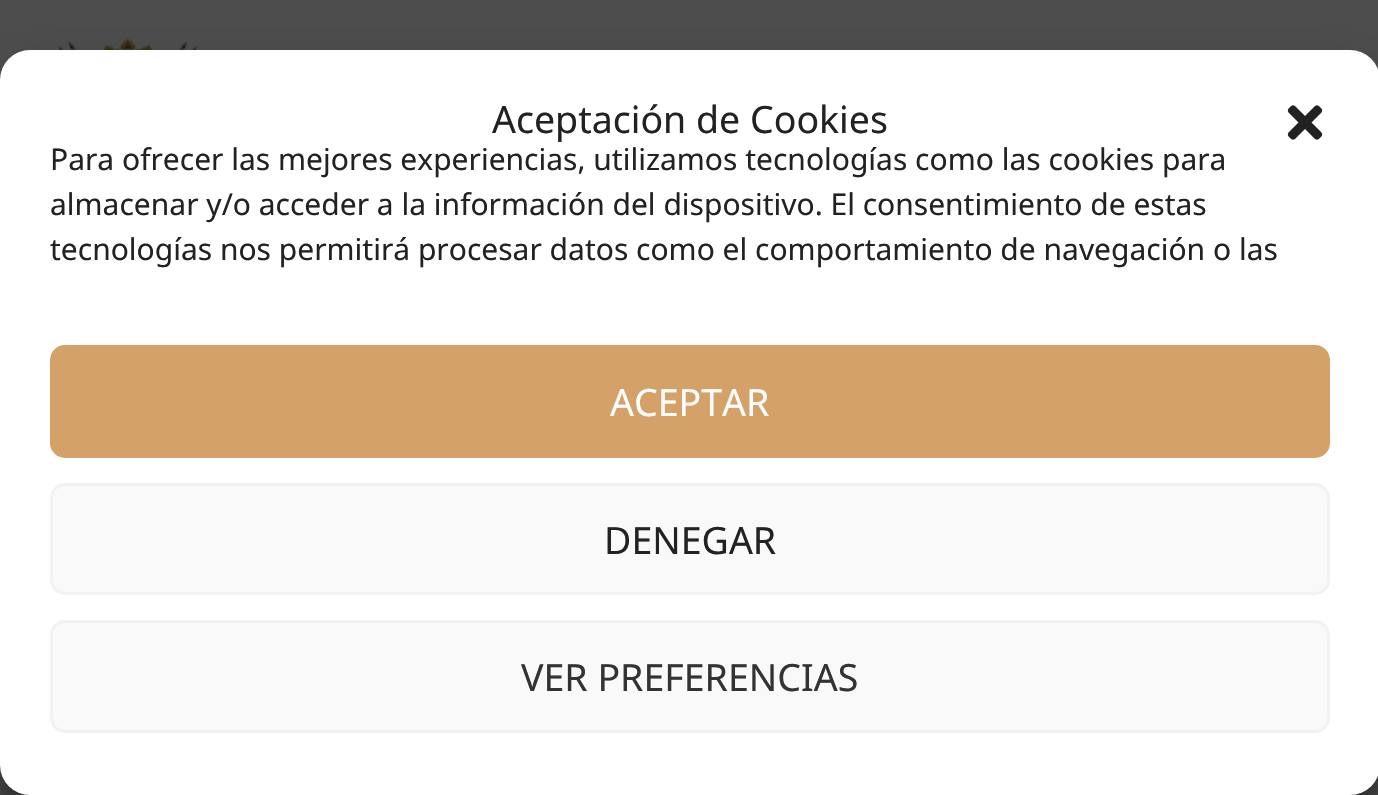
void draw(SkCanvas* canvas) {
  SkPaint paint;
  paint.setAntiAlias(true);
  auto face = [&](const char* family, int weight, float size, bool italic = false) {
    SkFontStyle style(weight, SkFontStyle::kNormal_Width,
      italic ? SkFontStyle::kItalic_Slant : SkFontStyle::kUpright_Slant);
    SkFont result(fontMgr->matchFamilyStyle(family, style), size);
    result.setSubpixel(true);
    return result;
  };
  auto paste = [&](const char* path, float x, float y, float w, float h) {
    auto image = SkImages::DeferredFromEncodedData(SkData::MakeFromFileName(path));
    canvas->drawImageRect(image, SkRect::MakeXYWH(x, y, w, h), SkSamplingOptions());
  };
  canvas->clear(0xff4a4a4a);
  paint.setColor(0xff4d4d4d);
  canvas->drawRect(SkRect::MakeXYWH(0, 0, 1378, 80), paint);
  paste("img/1.png", 57, 38, 141, 12);
  paint.setColor(0x3b000000);
  paint.setMaskFilter(SkMaskFilter::MakeBlur(kNormal_SkBlurStyle, 7.5f));
  canvas->drawRoundRect(SkRect::MakeXYWH(0, 65, 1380, 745), 30, 30, paint);
  paint.setMaskFilter(nullptr);
  paint.setColor(0x30000000);
  paint.setMaskFilter(SkMaskFilter::MakeBlur(kNormal_SkBlurStyle, 25));
  canvas->drawRoundRect(SkRect::MakeXYWH(0, 75, 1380, 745), 30, 30, paint);
  paint.setMaskFilter(nullptr);
  paint.setColor(0xffffffff);
  canvas->drawRoundRect(SkRect::MakeXYWH(0, 50, 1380, 745), 30, 30, paint);
  paste("img/2.png", 1287, 105, 36, 35);
  paint.setColor(0xffd4a269);
  canvas->drawRoundRect(SkRect::MakeXYWH(51.5f, 346.5f, 1277, 110), 13.5f, 13.5f, paint);
  paint.setStroke(true);
  paint.setStrokeWidth(3);
  canvas->drawRoundRect(SkRect::MakeXYWH(51.5f, 346.5f, 1277, 110), 13.5f, 13.5f, paint);
  paint.setStroke(false);
  paint.setColor(0xfff9f9f9);
  canvas->drawRoundRect(SkRect::MakeXYWH(51.5f, 484.5f, 1277, 109), 13.5f, 13.5f, paint);
  paint.setStroke(true);
  paint.setColor(0xfff2f2f2);
  canvas->drawRoundRect(SkRect::MakeXYWH(51.5f, 484.5f, 1277, 109), 13.5f, 13.5f, paint);
  paint.setStroke(false);
  paint.setColor(0xfff9f9f9);
  canvas->drawRoundRect(SkRect::MakeXYWH(51.5f, 621.5f, 1277, 110), 13.5f, 13.5f, paint);
  paint.setStroke(true);
  paint.setColor(0xfff2f2f2);
  canvas->drawRoundRect(SkRect::MakeXYWH(51.5f, 621.5f, 1277, 110), 13.5f, 13.5f, paint);
  auto f0 = face("Noto Sans", 400, 37.5f);
  paint.setStroke(false);
  paint.setColor(0xff222222);
  canvas->drawString("Aceptación de Cookies", 492, 133, f0, paint);
  auto f1 = face("Noto Sans", 400, 30);
  {
    const struct { const char* s; float x, y; } items[] = {
      {"Para ofrecer las mejores experiencias, utilizamos tecnologías como las cookies para", 50, 170},
      {"almacenar y/o acceder a la información del dispositivo. El consentimiento de estas", 50, 215},
      {"tecnologías nos permitirá procesar datos como el comportamiento de navegación o las", 50, 260},
    };
    for (auto [s, x, y] : items) {
      canvas->drawString(s, x, y, f1, paint);
    }
  }
  paint.setColor(0xffffffff);
  canvas->drawString("ACEPTAR", 610, 416, f0, paint);
  paint.setColor(0xff222222);
  canvas->drawString("DENEGAR", 604, 554, f0, paint);
  paint.setColor(0xff333333);
  canvas->drawString("VER PREFERENCIAS", 521, 691, f0, paint);
}
